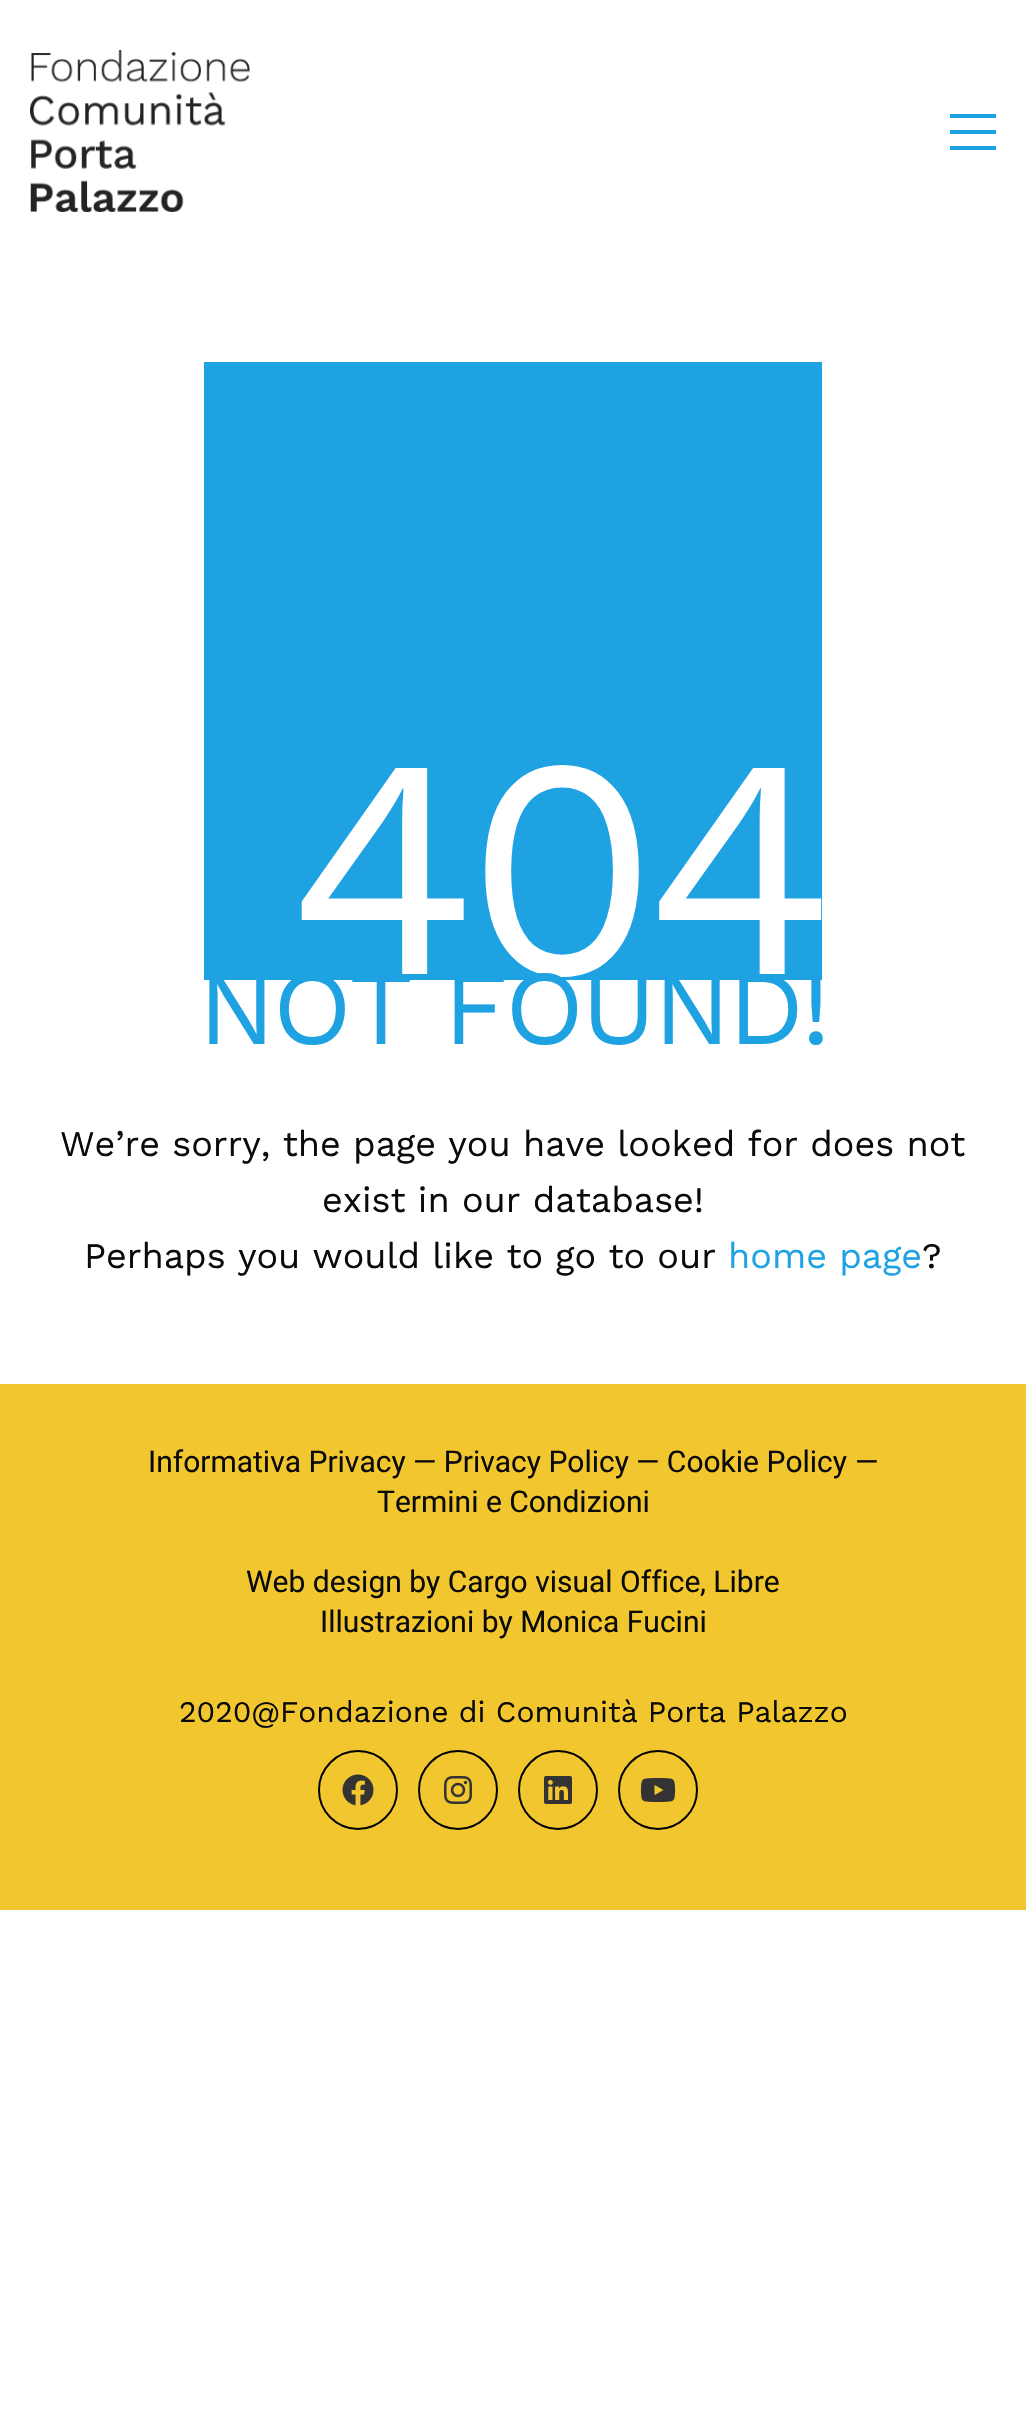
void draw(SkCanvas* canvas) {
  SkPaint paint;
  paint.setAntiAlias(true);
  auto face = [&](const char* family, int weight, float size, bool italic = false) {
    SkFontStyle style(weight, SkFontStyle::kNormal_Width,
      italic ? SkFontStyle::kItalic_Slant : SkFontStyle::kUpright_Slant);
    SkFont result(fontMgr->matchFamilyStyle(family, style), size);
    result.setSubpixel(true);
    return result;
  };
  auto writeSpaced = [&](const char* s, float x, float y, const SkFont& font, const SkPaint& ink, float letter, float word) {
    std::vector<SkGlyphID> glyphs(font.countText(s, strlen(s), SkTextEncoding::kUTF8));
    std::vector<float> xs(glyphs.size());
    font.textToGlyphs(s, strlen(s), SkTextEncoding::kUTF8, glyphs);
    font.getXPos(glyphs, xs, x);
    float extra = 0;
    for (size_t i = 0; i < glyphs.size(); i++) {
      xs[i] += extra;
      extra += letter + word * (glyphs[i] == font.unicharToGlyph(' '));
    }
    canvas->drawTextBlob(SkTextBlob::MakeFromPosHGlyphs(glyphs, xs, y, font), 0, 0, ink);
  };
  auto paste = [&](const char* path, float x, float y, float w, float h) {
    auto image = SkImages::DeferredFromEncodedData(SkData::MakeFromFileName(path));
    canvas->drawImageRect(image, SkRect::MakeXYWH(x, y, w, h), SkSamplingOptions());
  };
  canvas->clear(0xffffffff);
  paste("img/1.png", 30, 50, 220, 162);
  {
    const struct { float x, y, w, h; SkColor color; } items[] = {
      {950, 114, 46, 4, 0xff1ea2e2},
      {950, 130, 46, 4, 0xff1ea2e2},
      {950, 146, 46, 4, 0xff1ea2e2},
      {204, 362, 618, 618, 0xff1ea2e2},
      {0, 1384, 1026, 526, 0xfff1c62e},
    };
    for (auto [x, y, w, h, color] : items) {
      paint.setColor(color);
      canvas->drawRect(SkRect::MakeXYWH(x, y, w, h), paint);
    }
  }
  paint.setStroke(true);
  paint.setStrokeWidth(2);
  paint.setColor(0xff000000);
  canvas->drawCircle(358, 1790, 39, paint);
  paste("img/2.png", 342, 1774, 32, 32);
  canvas->drawCircle(458, 1790, 39, paint);
  paste("img/3.png", 444, 1776, 28, 28);
  canvas->drawCircle(558, 1790, 39, paint);
  paste("img/4.png", 544, 1776, 28, 28);
  canvas->drawCircle(658, 1790, 39, paint);
  paste("img/5.png", 640, 1778, 36, 24);
  auto f0 = face("Work Sans", 400, 312);
  paint.setStroke(false);
  paint.setColor(0xffffffff);
  writeSpaced("4 0 4", 288, 974, f0, paint, -60, 0);
  auto f1 = face("Work Sans", 400, 106);
  paint.setColor(0xff1ea2e2);
  writeSpaced("NOT FOUND!", 198, 1044, f1, paint, -3, 0);
  auto f2 = face("Work Sans", 400, 36);
  paint.setColor(0xff0a0a0a);
  {
    const struct { const char* s; float x, y; } items[] = {
      {"We’re sorry, the page you have looked for does not", 60, 1156},
      {"exist in our database!", 322, 1212},
      {"Perhaps you would like to go to our", 84, 1268},
    };
    for (auto [s, x, y] : items) {
      canvas->drawString(s, x, y, f2, paint);
    }
  }
  paint.setColor(0xff1ea2e2);
  canvas->drawString("home page", 728, 1268, f2, paint);
  paint.setColor(0xff0a0a0a);
  canvas->drawString("?", 922, 1268, f2, paint);
  auto f3 = face("Roboto", 400, 30);
  {
    const struct { const char* s; float x, y; } items[] = {
      {"Informativa Privacy", 148, 1472},
      {"— Privacy Policy", 413, 1472},
      {"— Cookie Policy", 636, 1472},
      {"—", 855, 1472},
      {"Termini e Condizioni", 377, 1512},
      {"Web design by Cargo visual Office", 246, 1592},
      {", Libre", 700, 1592},
      {"Illustrazioni by Monica Fucini", 320, 1632},
    };
    for (auto [s, x, y] : items) {
      canvas->drawString(s, x, y, f3, paint);
    }
  }
  auto f4 = face("Work Sans", 400, 30);
  canvas->drawString("2020@Fondazione di Comunità Porta Palazzo", 179, 1722, f4, paint);
}
